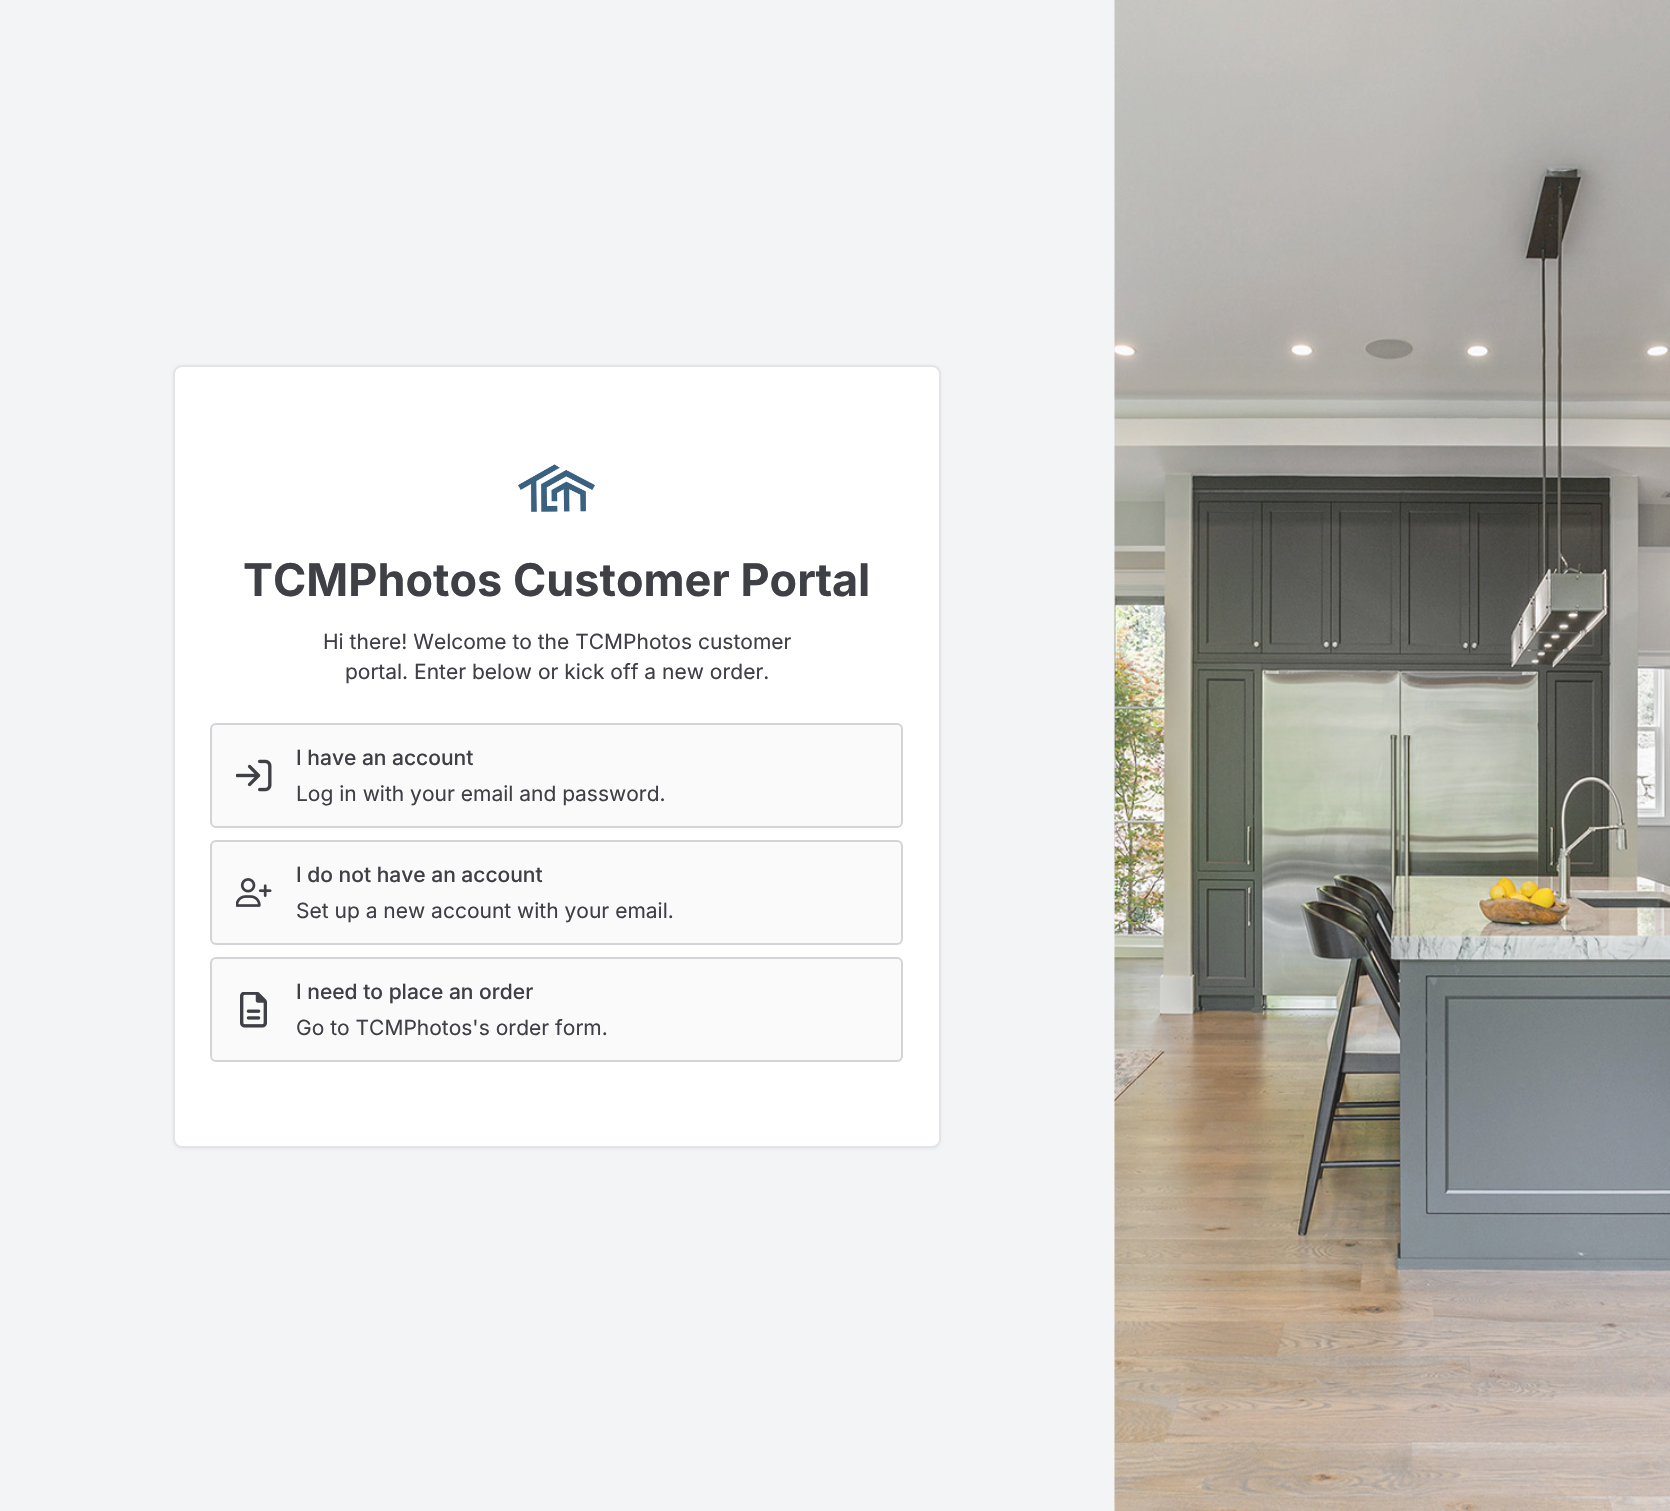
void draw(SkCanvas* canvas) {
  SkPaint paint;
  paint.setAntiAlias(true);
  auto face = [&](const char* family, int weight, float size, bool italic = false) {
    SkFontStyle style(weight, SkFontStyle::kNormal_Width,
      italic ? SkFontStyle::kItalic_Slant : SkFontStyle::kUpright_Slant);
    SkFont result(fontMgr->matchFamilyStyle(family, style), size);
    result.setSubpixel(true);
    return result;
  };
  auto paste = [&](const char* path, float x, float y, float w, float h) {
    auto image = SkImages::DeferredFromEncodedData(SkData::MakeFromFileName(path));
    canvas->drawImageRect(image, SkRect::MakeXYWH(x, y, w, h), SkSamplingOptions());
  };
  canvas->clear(0xfff3f4f6);
  paint.setColor(0x0d000000);
  paint.setMaskFilter(SkMaskFilter::MakeBlur(kNormal_SkBlurStyle, 1.5f));
  canvas->drawRoundRect(SkRect::MakeXYWH(173, 366, 768, 783), 9, 9, paint);
  paint.setMaskFilter(nullptr);
  paint.setColor(0xffffffff);
  canvas->drawRoundRect(SkRect::MakeXYWH(174, 366, 766, 781), 8, 8, paint);
  paint.setStroke(true);
  paint.setStrokeWidth(2);
  paint.setColor(0xffe4e4e7);
  canvas->drawRoundRect(SkRect::MakeXYWH(174, 366, 766, 781), 8, 8, paint);
  paste("img/1.png", 518, 464, 77, 48);
  paint.setStroke(false);
  paint.setColor(0xfffafafa);
  canvas->drawRoundRect(SkRect::MakeXYWH(211, 724, 691, 103), 5, 5, paint);
  paint.setStroke(true);
  paint.setColor(0xffd4d4d8);
  canvas->drawRoundRect(SkRect::MakeXYWH(211, 724, 691, 103), 5, 5, paint);
  paste("img/2.png", 236, 759, 36, 33);
  paint.setStroke(false);
  paint.setColor(0xfffafafa);
  canvas->drawRoundRect(SkRect::MakeXYWH(211, 841, 691, 103), 5, 5, paint);
  paint.setStroke(true);
  paint.setColor(0xffd4d4d8);
  canvas->drawRoundRect(SkRect::MakeXYWH(211, 841, 691, 103), 5, 5, paint);
  paste("img/3.png", 236, 878, 36, 29);
  paint.setStroke(false);
  paint.setColor(0xfffafafa);
  canvas->drawRoundRect(SkRect::MakeXYWH(211, 958, 691, 103), 5, 5, paint);
  paint.setStroke(true);
  paint.setColor(0xffd4d4d8);
  canvas->drawRoundRect(SkRect::MakeXYWH(211, 958, 691, 103), 5, 5, paint);
  paste("img/4.png", 240, 992, 27, 36);
  paste("img/5.png", 1114, 0, 556, 1511);
  auto f0 = face("Inter", 700, 45);
  paint.setStroke(false);
  paint.setColor(0xff3f3f46);
  canvas->drawString("TCMPhotos Customer Portal", 243, 596, f0, paint);
  auto f1 = face("Inter", 400, 21);
  canvas->drawString("Hi there! Welcome to the TCMPhotos customer", 323, 649, f1, paint);
  canvas->drawString("portal. Enter below or kick off a new order.", 345, 679, f1, paint);
  auto f2 = face("Inter", 500, 21);
  canvas->drawString("I have an account", 296, 765, f2, paint);
  canvas->drawString("Log in with your email and password.", 296, 801, f1, paint);
  canvas->drawString("I do not have an account", 296, 882, f2, paint);
  canvas->drawString("Set up a new account with your email.", 296, 918, f1, paint);
  canvas->drawString("I need to place an order", 296, 999, f2, paint);
  canvas->drawString("Go to TCMPhotos's order form.", 296, 1035, f1, paint);
}
